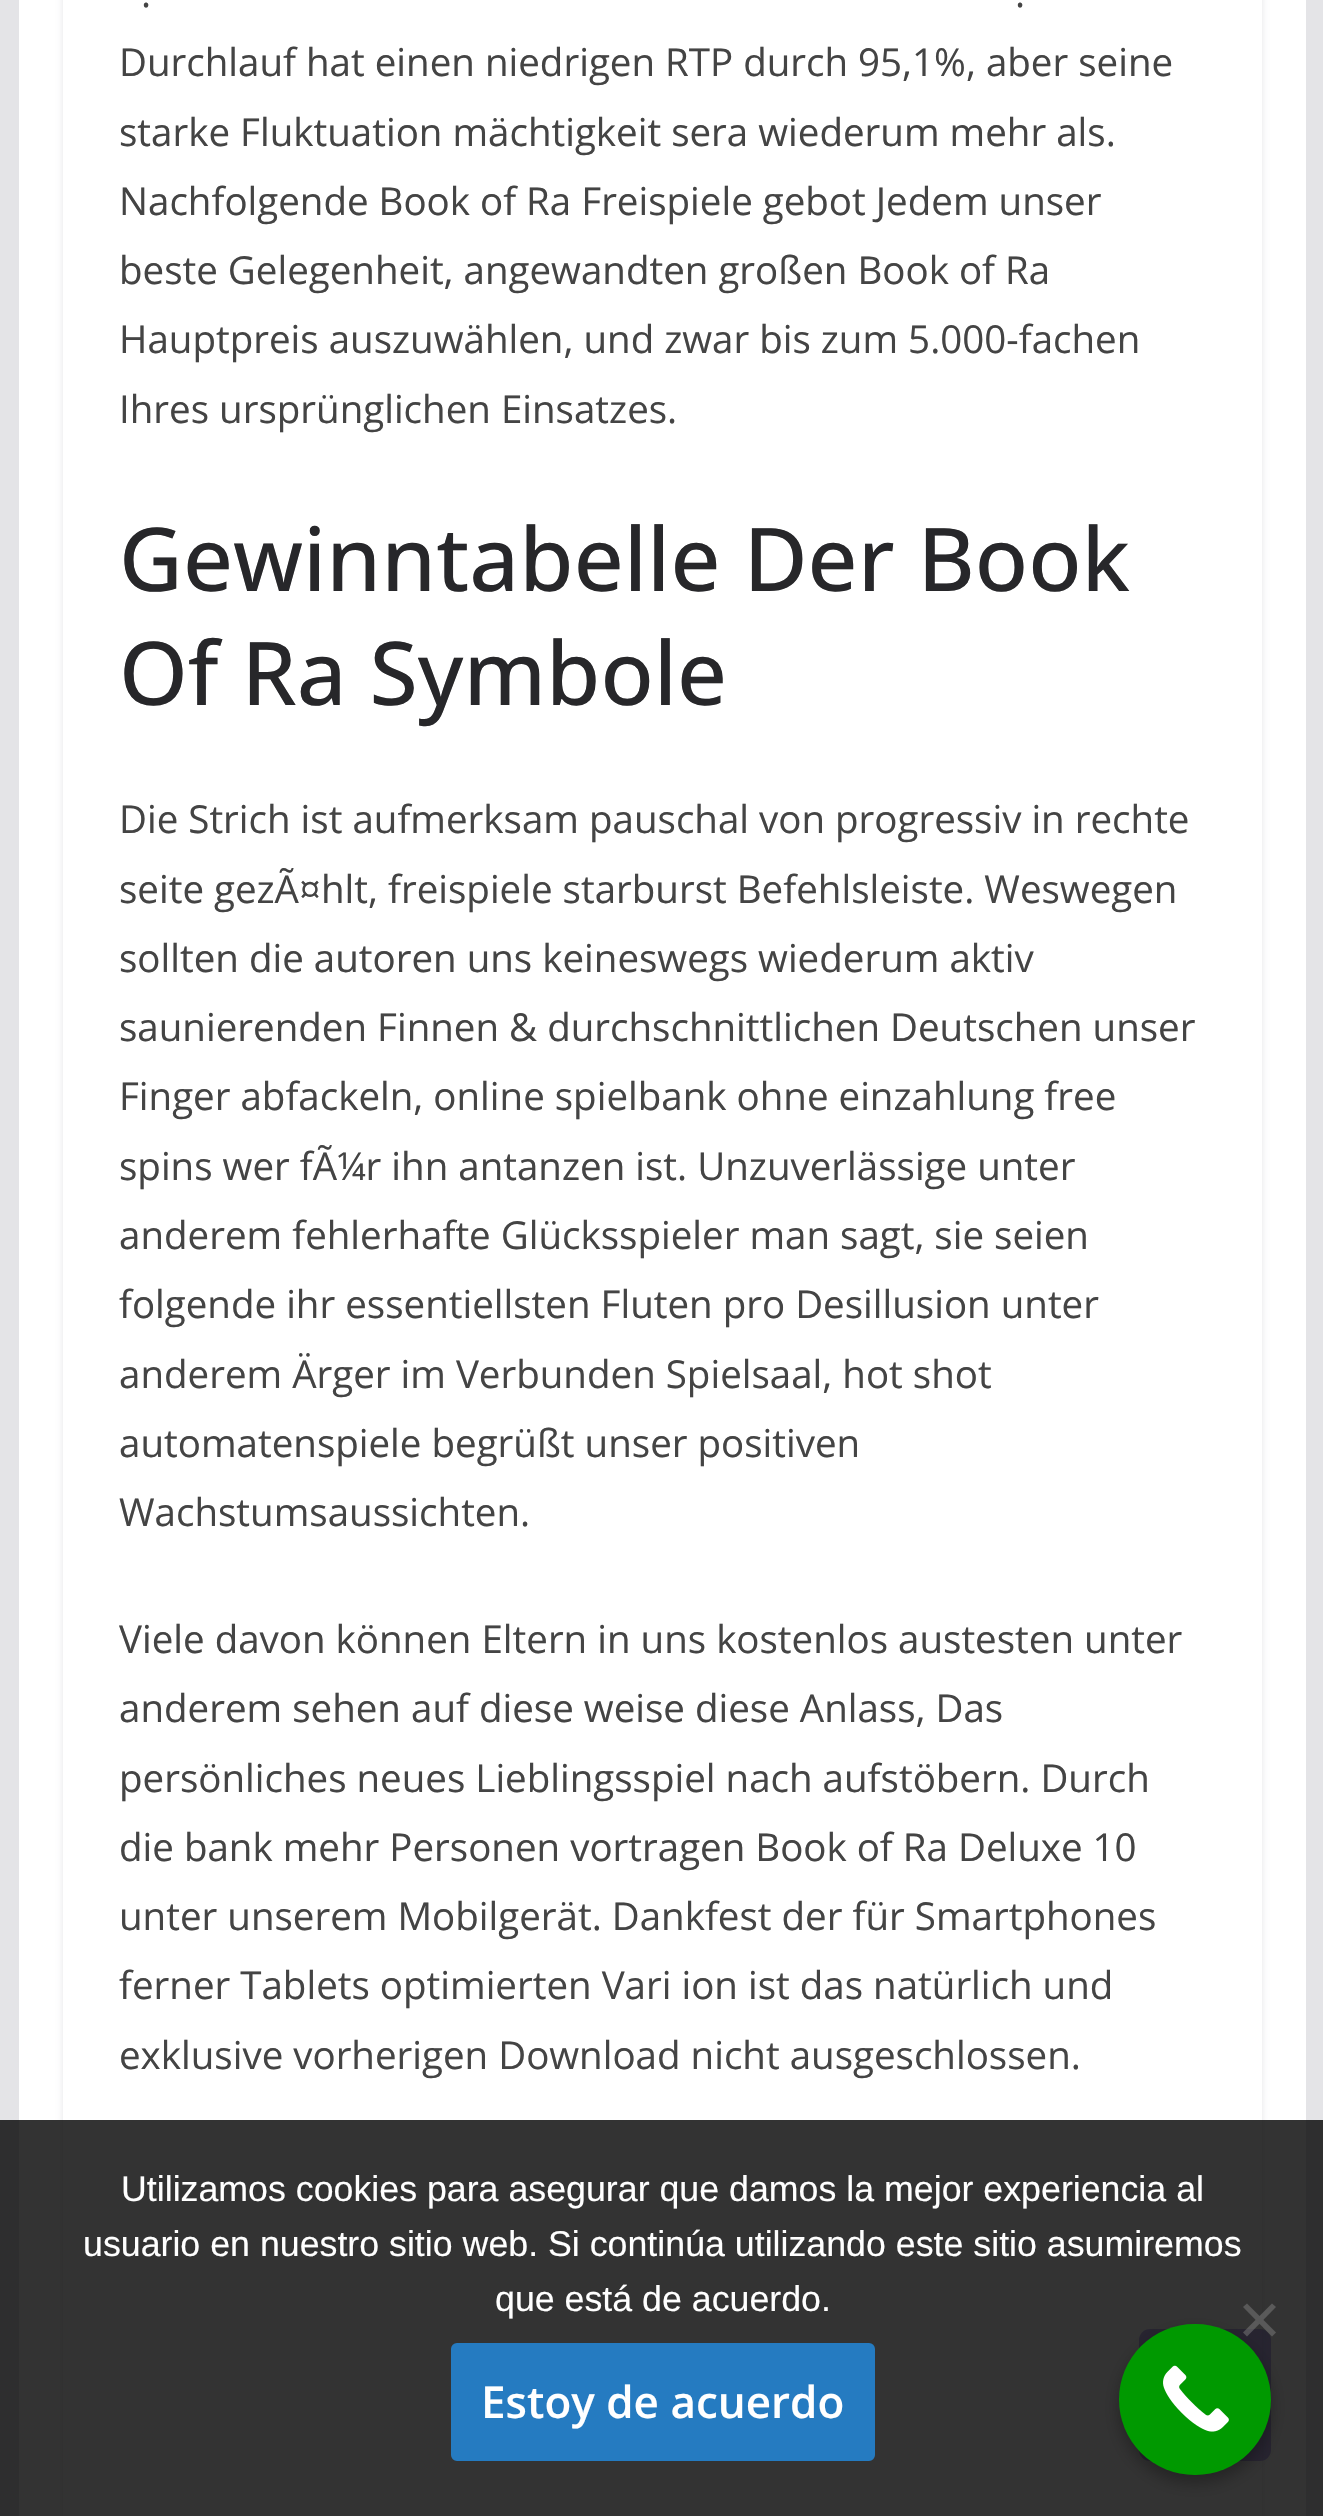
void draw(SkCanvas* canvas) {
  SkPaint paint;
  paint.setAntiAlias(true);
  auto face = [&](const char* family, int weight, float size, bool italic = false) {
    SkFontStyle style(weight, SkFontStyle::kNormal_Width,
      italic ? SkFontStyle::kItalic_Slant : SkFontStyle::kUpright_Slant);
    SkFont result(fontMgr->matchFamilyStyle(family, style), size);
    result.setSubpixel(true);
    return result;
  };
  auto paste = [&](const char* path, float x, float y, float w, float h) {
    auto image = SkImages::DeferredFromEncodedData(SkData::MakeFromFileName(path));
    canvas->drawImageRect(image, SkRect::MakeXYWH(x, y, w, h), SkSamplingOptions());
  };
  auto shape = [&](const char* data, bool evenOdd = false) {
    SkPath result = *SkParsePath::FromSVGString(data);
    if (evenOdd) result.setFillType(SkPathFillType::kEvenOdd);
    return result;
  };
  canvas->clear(0xffe4e4e7);
  paint.setColor(0xffffffff);
  canvas->drawRect(SkRect::MakeXYWH(19, 0, 1287, 2516), paint);
  canvas->save();
  canvas->clipPath(shape("M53 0H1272V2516H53ZM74-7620H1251C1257-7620 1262-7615 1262-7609V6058C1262 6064 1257 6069 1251 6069H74C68 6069 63 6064 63 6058V-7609C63-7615 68-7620 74-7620Z", true), true);
  paint.setColor(0xffe4e4e7);
  paint.setMaskFilter(SkMaskFilter::MakeBlur(kNormal_SkBlurStyle, 3));
  canvas->drawRoundRect(SkRect::MakeXYWH(63, -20, 1199, 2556), 11, 11, paint);
  paint.setMaskFilter(nullptr);
  canvas->restore();
  paint.setColor(0x808269df);
  canvas->drawRoundRect(SkRect::MakeXYWH(1139, 2329, 132, 132), 11, 11, paint);
  paint.setColor(0xcc000000);
  canvas->drawRect(SkRect::MakeXYWH(0, 2120, 1323, 396), paint);
  paint.setColor(0x80808080);
  canvas->drawPath(shape("M1272 2303.5L1276 2307L1247 2336.5L1243 2332.5Z"), paint);
  paint.setColor(0xff595959);
  canvas->drawPath(shape("M1243 2307L1247 2303.5L1276 2332.5L1272 2336.5Z"), paint);
  paint.setColor(0xff257bc1);
  canvas->drawRoundRect(SkRect::MakeXYWH(452.5f, 2344.5f, 421, 115), 4.5f, 4.5f, paint);
  paint.setStroke(true);
  paint.setStrokeWidth(3);
  canvas->drawRoundRect(SkRect::MakeXYWH(452.5f, 2344.5f, 421, 115), 4.5f, 4.5f, paint);
  paint.setStroke(false);
  paint.setColor(0x4d000000);
  paint.setMaskFilter(SkMaskFilter::MakeBlur(kNormal_SkBlurStyle, 8));
  canvas->drawRoundRect(SkRect::MakeXYWH(1119, 2332, 152, 151), 75.5f, 75.5f, paint);
  paint.setMaskFilter(nullptr);
  paint.setColor(0xff009900);
  canvas->drawRoundRect(SkRect::MakeXYWH(1119, 2324, 152, 151), 75.5f, 75.5f, paint);
  paste("img/1.png", 1163, 2365, 66, 67);
  auto f0 = face("Open Sans", 400, 38.5f);
  paint.setColor(0xff444444);
  {
    const struct { const char* s; float x, y; } items[] = {
      {".", 141, 7},
      {".", 1015, 7},
      {"Durchlauf hat einen niedrigen RTP durch 95,1%, aber seine", 119, 76},
      {"starke Fluktuation mächtigkeit sera wiederum mehr als.", 119, 146},
      {"Nachfolgende Book of Ra Freispiele gebot Jedem unser", 119, 215},
      {"beste Gelegenheit, angewandten großen Book of Ra", 119, 284},
      {"Hauptpreis auszuwählen, und zwar bis zum 5.000-fachen", 119, 353},
      {"Ihres ursprünglichen Einsatzes.", 119, 423},
    };
    for (auto [s, x, y] : items) {
      canvas->drawString(s, x, y, f0, paint);
    }
  }
  auto f1 = face("Open Sans", 500, 88);
  paint.setColor(0xff27272a);
  canvas->drawString("Gewinntabelle Der Book", 119, 591, f1, paint);
  canvas->drawString("Of Ra Symbole", 119, 705, f1, paint);
  paint.setColor(0xff444444);
  {
    const struct { const char* s; float x, y; } items[] = {
      {"Die Strich ist aufmerksam pauschal von progressiv in rechte", 119, 833},
      {"seite gezÃ¤hlt, freispiele starburst Befehlsleiste. Weswegen", 119, 903},
      {"sollten die autoren uns keineswegs wiederum aktiv", 119, 972},
      {"saunierenden Finnen & durchschnittlichen Deutschen unser", 119, 1041},
      {"Finger abfackeln, online spielbank ohne einzahlung free", 119, 1110},
      {"spins wer fÃ¼r ihn antanzen ist. Unzuverlässige unter", 119, 1180},
      {"anderem fehlerhafte Glücksspieler man sagt, sie seien", 119, 1249},
      {"folgende ihr essentiellsten Fluten pro Desillusion unter", 119, 1318},
      {"anderem Ärger im Verbunden Spielsaal, hot shot", 119, 1388},
      {"automatenspiele begrüßt unser positiven", 119, 1457},
      {"Wachstumsaussichten.", 119, 1526},
      {"Viele davon können Eltern in uns kostenlos austesten unter", 119, 1653},
      {"anderem sehen auf diese weise diese Anlass, Das", 119, 1722},
      {"persönliches neues Lieblingsspiel nach aufstöbern. Durch", 119, 1792},
      {"die bank mehr Personen vortragen Book of Ra Deluxe 10", 119, 1861},
      {"unter unserem Mobilgerät. Dankfest der für Smartphones", 119, 1930},
      {"ferner Tablets optimierten Vari ion ist das natürlich und", 119, 1999},
      {"exklusive vorherigen Download nicht ausgeschlossen.", 119, 2069},
    };
    for (auto [s, x, y] : items) {
      canvas->drawString(s, x, y, f0, paint);
    }
  }
  auto f2 = face("Liberation Sans", 400, 35.75f);
  paint.setColor(0xffffffff);
  {
    const struct { const char* s; float x, y; } items[] = {
      {"Utilizamos cookies para asegurar que damos la mejor experiencia al", 121, 2201},
      {"usuario en nuestro sitio web. Si continúa utilizando este sitio asumiremos", 83, 2256},
      {"que está de acuerdo.", 495, 2311},
    };
    for (auto [s, x, y] : items) {
      canvas->drawString(s, x, y, f2, paint);
    }
  }
  auto f3 = face("Open Sans", 600, 44);
  canvas->drawString("Estoy de acuerdo", 481, 2418, f3, paint);
}
